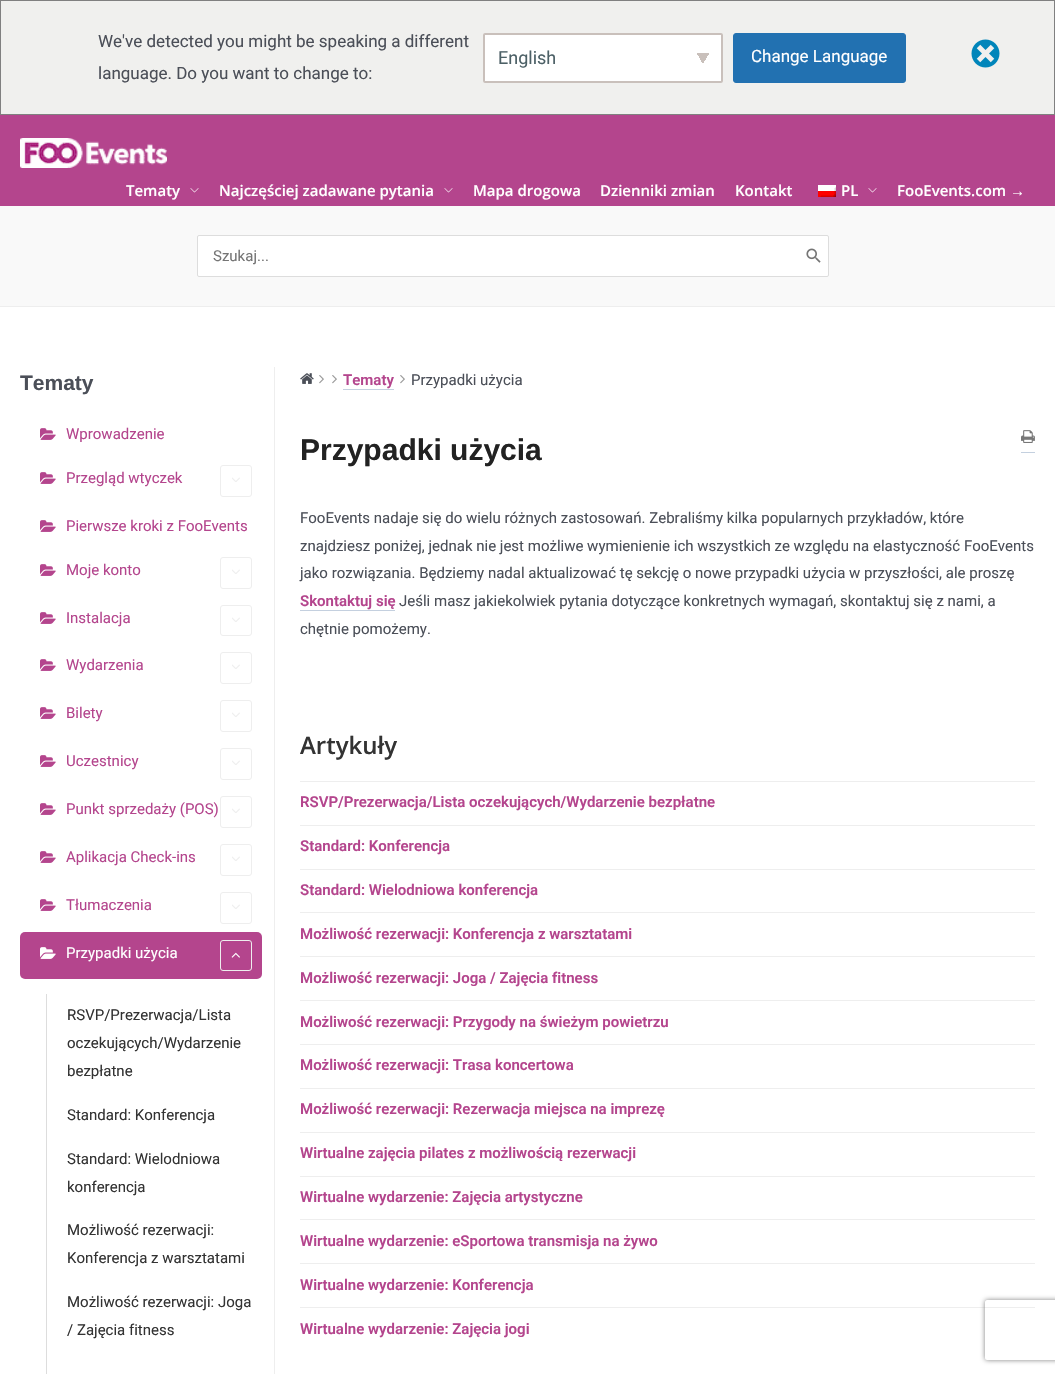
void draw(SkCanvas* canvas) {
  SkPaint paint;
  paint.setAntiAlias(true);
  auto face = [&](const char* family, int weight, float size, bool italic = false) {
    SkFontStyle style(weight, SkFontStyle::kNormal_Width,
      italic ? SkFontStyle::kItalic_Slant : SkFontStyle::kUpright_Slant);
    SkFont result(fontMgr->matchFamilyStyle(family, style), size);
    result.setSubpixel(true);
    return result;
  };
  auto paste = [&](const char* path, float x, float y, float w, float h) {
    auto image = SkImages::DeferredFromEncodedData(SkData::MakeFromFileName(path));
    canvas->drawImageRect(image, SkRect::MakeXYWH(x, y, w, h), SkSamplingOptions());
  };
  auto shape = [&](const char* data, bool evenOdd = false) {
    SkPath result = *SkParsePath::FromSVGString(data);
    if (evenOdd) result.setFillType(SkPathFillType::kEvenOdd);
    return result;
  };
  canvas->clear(0xffffffff);
  paint.setColor(0xfff0f0ee);
  canvas->drawRect(SkRect::MakeXYWH(0.5f, 0.5f, 1054, 114), paint);
  paint.setStroke(true);
  paint.setStrokeWidth(1);
  paint.setColor(0xff808080);
  canvas->drawRect(SkRect::MakeXYWH(0.5f, 0.5f, 1054, 114), paint);
  paint.setStroke(false);
  paint.setColor(0xffffffff);
  canvas->drawRoundRect(SkRect::MakeXYWH(483, 33, 240, 50), 2, 2, paint);
  {
    const SkColor colors[] = {0xffc9c0bb, 0xffffffff};
    const float stops[] = {0.5f, 0.5f};
    const SkPoint ends[] = {{701, 56}, {711, 62}};
    paint.setShader(SkGradientShader::MakeLinear(ends, colors, stops, 2, SkTileMode::kClamp));
    paint.setAlpha(255);
  }
  canvas->drawRect(SkRect::MakeXYWH(703, 53, 6, 12), paint);
  {
    const SkColor colors[] = {0xffffffff, 0xffc9c0bb};
    const float stops[] = {0.5f, 0.5f};
    const SkPoint ends[] = {{695, 62}, {705, 56}};
    paint.setShader(SkGradientShader::MakeLinear(ends, colors, stops, 2, SkTileMode::kClamp));
    paint.setAlpha(255);
  }
  canvas->drawRect(SkRect::MakeXYWH(697, 53, 6, 12), paint);
  paint.setStroke(true);
  paint.setStrokeWidth(2);
  paint.setShader(nullptr);
  paint.setColor(0xffc9c0bb);
  canvas->drawRoundRect(SkRect::MakeXYWH(484, 34, 238, 48), 1, 1, paint);
  paint.setStroke(false);
  paint.setColor(0xff2271b1);
  canvas->drawRoundRect(SkRect::MakeXYWH(733.5f, 33.5f, 172, 49), 2.5f, 2.5f, paint);
  paint.setStroke(true);
  paint.setStrokeWidth(1);
  canvas->drawRoundRect(SkRect::MakeXYWH(733.5f, 33.5f, 172, 49), 2.5f, 2.5f, paint);
  paste("img/1.png", 971, 39, 29, 29);
  paint.setStroke(false);
  paint.setColor(0xffb4458d);
  canvas->drawRect(SkRect::MakeXYWH(0, 115, 1055, 91), paint);
  paste("img/2.png", 20, 138, 147, 30);
  paste("img/3.png", 190, 188, 9, 5);
  paste("img/3.png", 444, 188, 9, 5);
  paste("img/4.png", 818, 185, 18, 12);
  paste("img/3.png", 868, 188, 9, 5);
  paint.setColor(0xfff9f9f9);
  canvas->drawRect(SkRect::MakeXYWH(0, 206, 1055, 100), paint);
  paint.setColor(0xffeeeeee);
  canvas->drawRect(SkRect::MakeXYWH(0, 306, 1055, 1), paint);
  paint.setColor(0xffffffff);
  canvas->drawRoundRect(SkRect::MakeXYWH(197.5f, 235.5f, 631, 41), 1.5f, 1.5f, paint);
  paint.setStroke(true);
  paint.setColor(0xffdddddd);
  canvas->drawRoundRect(SkRect::MakeXYWH(197.5f, 235.5f, 631, 41), 1.5f, 1.5f, paint);
  paste("img/5.png", 806, 248, 15, 15);
  paste("img/6.png", 40, 428, 16, 12);
  paste("img/6.png", 40, 472, 16, 12);
  paint.setColor(0xffeeeeee);
  canvas->drawRoundRect(SkRect::MakeXYWH(220.5f, 465.5f, 31, 31), 2.5f, 2.5f, paint);
  paste("img/7.png", 232, 477, 8, 5);
  paste("img/6.png", 40, 520, 16, 12);
  paste("img/6.png", 40, 564, 16, 12);
  canvas->drawRoundRect(SkRect::MakeXYWH(220.5f, 557.5f, 31, 31), 2.5f, 2.5f, paint);
  paste("img/7.png", 232, 569, 8, 5);
  paste("img/6.png", 40, 612, 16, 12);
  canvas->drawRoundRect(SkRect::MakeXYWH(220.5f, 605.5f, 31, 30), 2.5f, 2.5f, paint);
  paste("img/7.png", 232, 617, 8, 5);
  paste("img/6.png", 40, 659, 16, 12);
  canvas->drawRoundRect(SkRect::MakeXYWH(220.5f, 652.5f, 31, 31), 2.5f, 2.5f, paint);
  paste("img/7.png", 232, 664, 8, 5);
  paste("img/6.png", 40, 707, 16, 12);
  canvas->drawRoundRect(SkRect::MakeXYWH(220.5f, 700.5f, 31, 31), 2.5f, 2.5f, paint);
  paste("img/7.png", 232, 712, 8, 5);
  paste("img/6.png", 40, 755, 16, 12);
  canvas->drawRoundRect(SkRect::MakeXYWH(220.5f, 748.5f, 31, 31), 2.5f, 2.5f, paint);
  paste("img/7.png", 232, 760, 8, 5);
  paste("img/6.png", 40, 803, 16, 12);
  canvas->drawRoundRect(SkRect::MakeXYWH(220.5f, 796.5f, 31, 31), 2.5f, 2.5f, paint);
  paste("img/7.png", 232, 808, 8, 5);
  paste("img/6.png", 40, 851, 16, 12);
  canvas->drawRoundRect(SkRect::MakeXYWH(220.5f, 844.5f, 31, 31), 2.5f, 2.5f, paint);
  paste("img/7.png", 232, 856, 8, 5);
  paste("img/6.png", 40, 899, 16, 12);
  canvas->drawRoundRect(SkRect::MakeXYWH(220.5f, 892.5f, 31, 31), 2.5f, 2.5f, paint);
  paste("img/7.png", 232, 904, 8, 5);
  paint.setStroke(false);
  paint.setColor(0xffb4458d);
  canvas->drawRoundRect(SkRect::MakeXYWH(20, 932, 242, 47), 5, 5, paint);
  paste("img/8.png", 40, 947, 16, 12);
  paint.setStroke(true);
  paint.setColor(0xffeeeeee);
  canvas->drawRoundRect(SkRect::MakeXYWH(220.5f, 940.5f, 31, 30), 2.5f, 2.5f, paint);
  paste("img/9.png", 231, 952, 9, 6);
  paint.setStroke(false);
  paint.setColor(0xffdddddd);
  canvas->drawRect(SkRect::MakeXYWH(46, 994, 1, 380), paint);
  paint.setColor(0xffeeeeee);
  canvas->drawRect(SkRect::MakeXYWH(274, 367, 1, 1007), paint);
  paste("img/10.png", 300, 373, 14, 11);
  paste("img/11.png", 319, 375, 5, 9);
  paste("img/11.png", 332, 375, 5, 9);
  paint.setColor(0xffc4d0df);
  canvas->drawRect(SkRect::MakeXYWH(343, 389, 51, 1), paint);
  paste("img/11.png", 400, 375, 5, 9);
  canvas->drawRect(SkRect::MakeXYWH(1021, 452, 14, 1), paint);
  paste("img/12.png", 1021, 430, 14, 13);
  {
    const struct { float x, y, w, h; SkColor color; } items[] = {
      {300, 610, 95, 1, 0xffc4d0df},
      {300, 781, 735, 1, 0xffeeeeee},
      {300, 825, 735, 1, 0xffeeeeee},
      {300, 869, 735, 1, 0xffeeeeee},
      {300, 912, 735, 1, 0xffeeeeee},
      {300, 956, 735, 1, 0xffeeeeee},
      {300, 1000, 735, 1, 0xffeeeeee},
      {300, 1044, 735, 1, 0xffeeeeee},
      {300, 1088, 735, 1, 0xffeeeeee},
      {300, 1132, 735, 1, 0xffeeeeee},
      {300, 1176, 735, 1, 0xffeeeeee},
      {300, 1219, 735, 1, 0xffeeeeee},
      {300, 1263, 735, 1, 0xffeeeeee},
      {300, 1307, 735, 1, 0xffeeeeee},
    };
    for (auto [x, y, w, h, color] : items) {
      paint.setColor(color);
      canvas->drawRect(SkRect::MakeXYWH(x, y, w, h), paint);
    }
  }
  canvas->save();
  canvas->clipPath(shape("M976 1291H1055V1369H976ZM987 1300H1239C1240 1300 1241 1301 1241 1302V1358C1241 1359 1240 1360 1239 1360H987C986 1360 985 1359 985 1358V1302C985 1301 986 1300 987 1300Z", true), true);
  paint.setColor(0xff808080);
  paint.setMaskFilter(SkMaskFilter::MakeBlur(kNormal_SkBlurStyle, 2.5f));
  canvas->drawRoundRect(SkRect::MakeXYWH(985, 1300, 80, 60), 2, 2, paint);
  paint.setMaskFilter(nullptr);
  canvas->restore();
  auto f0 = face("Roboto", 400, 17);
  paint.setColor(0xff4b4f58);
  canvas->drawString("We've detected you might be speaking a different", 98, 47, f0, paint);
  canvas->drawString("language. Do you want to change to:", 98, 79, f0, paint);
  auto f1 = face("Roboto", 400, 18);
  paint.setColor(0xff4c6066);
  canvas->drawString("English", 498, 64, f1, paint);
  paint.setColor(0xffffffff);
  canvas->drawString("Change Language", 751, 62, f0, paint);
  auto f2 = face("Open Sans", 600, 15);
  {
    const struct { const char* s; float x, y; } items[] = {
      {"Tematy", 126, 196},
      {"Najczęściej zadawane pytania", 219, 196},
      {"Mapa drogowa", 473, 196},
      {"Dzienniki zmian", 600, 196},
      {"Kontakt", 735, 196},
      {"PL", 841, 196},
      {"FooEvents.com", 897, 196},
    };
    for (auto [s, x, y] : items) {
      canvas->drawString(s, x, y, f2, paint);
    }
  }
  auto f3 = face("Liberation Sans", 700, 15);
  canvas->drawString("→", 1010, 196, f3, paint);
  auto f4 = face("Roboto", 400, 15);
  paint.setColor(0xff757575);
  canvas->drawString("Szukaj...", 213, 261, f4, paint);
  auto f5 = face("Liberation Sans", 700, 21);
  paint.setColor(0xff4b4f58);
  canvas->drawString("Tematy", 20, 390, f5, paint);
  paint.setColor(0xffb4458d);
  {
    const struct { const char* s; float x, y; } items[] = {
      {"Wprowadzenie", 66, 439},
      {"Przegląd wtyczek", 66, 483},
      {"Pierwsze kroki z FooEvents", 66, 531},
      {"Moje konto", 66, 575},
      {"Instalacja", 66, 623},
      {"Wydarzenia", 66, 670},
      {"Bilety", 66, 718},
      {"Uczestnicy", 66, 766},
      {"Punkt sprzedaży (POS)", 66, 814},
      {"Aplikacja Check-ins", 66, 862},
      {"Tłumaczenia", 66, 910},
    };
    for (auto [s, x, y] : items) {
      canvas->drawString(s, x, y, f4, paint);
    }
  }
  paint.setColor(0xffffffff);
  canvas->drawString("Przypadki użycia", 66, 958, f4, paint);
  paint.setColor(0xff333333);
  {
    const struct { const char* s; float x, y; } items[] = {
      {"RSVP/Prezerwacja/Lista", 67, 1020},
      {"oczekujących/Wydarzenie", 67, 1048},
      {"bezpłatne", 67, 1076},
      {"Standard: Konferencja", 67, 1120},
      {"Standard: Wielodniowa", 67, 1164},
      {"konferencja", 67, 1192},
      {"Możliwość rezerwacji:", 67, 1235},
      {"Konferencja z warsztatami", 67, 1263},
      {"Możliwość rezerwacji: Joga", 67, 1307},
      {"/ Zajęcia fitness", 67, 1335},
    };
    for (auto [s, x, y] : items) {
      canvas->drawString(s, x, y, f4, paint);
    }
  }
  auto f6 = face("Roboto", 600, 15);
  paint.setColor(0xffb4458d);
  canvas->drawString("Tematy", 343, 385, f6, paint);
  paint.setColor(0xff4b4f58);
  canvas->drawString("Przypadki użycia", 411, 385, f4, paint);
  auto f7 = face("Liberation Sans", 700, 30);
  paint.setColor(0xff222222);
  canvas->drawString("Przypadki użycia", 300, 460, f7, paint);
  paint.setColor(0xff4b4f58);
  {
    const struct { const char* s; float x, y; } items[] = {
      {"FooEvents nadaje się do wielu różnych zastosowań. Zebraliśmy kilka popularnych przykładów, które", 300, 523},
      {"znajdziesz poniżej, jednak nie jest możliwe wymienienie ich wszystkich ze względu na elastyczność FooEvents", 300, 551},
      {"jako rozwiązania. Będziemy nadal aktualizować tę sekcję o nowe przypadki użycia w przyszłości, ale proszę", 300, 578},
    };
    for (auto [s, x, y] : items) {
      canvas->drawString(s, x, y, f4, paint);
    }
  }
  paint.setColor(0xffb4458d);
  canvas->drawString("Skontaktuj się", 300, 606, f6, paint);
  paint.setColor(0xff4b4f58);
  canvas->drawString("Jeśli masz jakiekolwiek pytania dotyczące konkretnych wymagań, skontaktuj się z nami, a", 399, 606, f4, paint);
  canvas->drawString("chętnie pomożemy.", 300, 634, f4, paint);
  auto f8 = face("Open Sans", 600, 24);
  paint.setColor(0xff333333);
  canvas->drawString("Artykuły", 300, 754, f8, paint);
  paint.setColor(0xffb4458d);
  {
    const struct { const char* s; float x, y; } items[] = {
      {"RSVP/Prezerwacja/Lista oczekujących/Wydarzenie bezpłatne", 300, 807},
      {"Standard: Konferencja", 300, 851},
      {"Standard: Wielodniowa konferencja", 300, 895},
      {"Możliwość rezerwacji: Konferencja z warsztatami", 300, 939},
      {"Możliwość rezerwacji: Joga / Zajęcia fitness", 300, 983},
      {"Możliwość rezerwacji: Przygody na świeżym powietrzu", 300, 1027},
      {"Możliwość rezerwacji: Trasa koncertowa", 300, 1070},
      {"Możliwość rezerwacji: Rezerwacja miejsca na imprezę", 300, 1114},
      {"Wirtualne zajęcia pilates z możliwością rezerwacji", 300, 1158},
      {"Wirtualne wydarzenie: Zajęcia artystyczne", 300, 1202},
      {"Wirtualne wydarzenie: eSportowa transmisja na żywo", 300, 1246},
      {"Wirtualne wydarzenie: Konferencja", 300, 1290},
      {"Wirtualne wydarzenie: Zajęcia jogi", 300, 1334},
    };
    for (auto [s, x, y] : items) {
      canvas->drawString(s, x, y, f6, paint);
    }
  }
}
